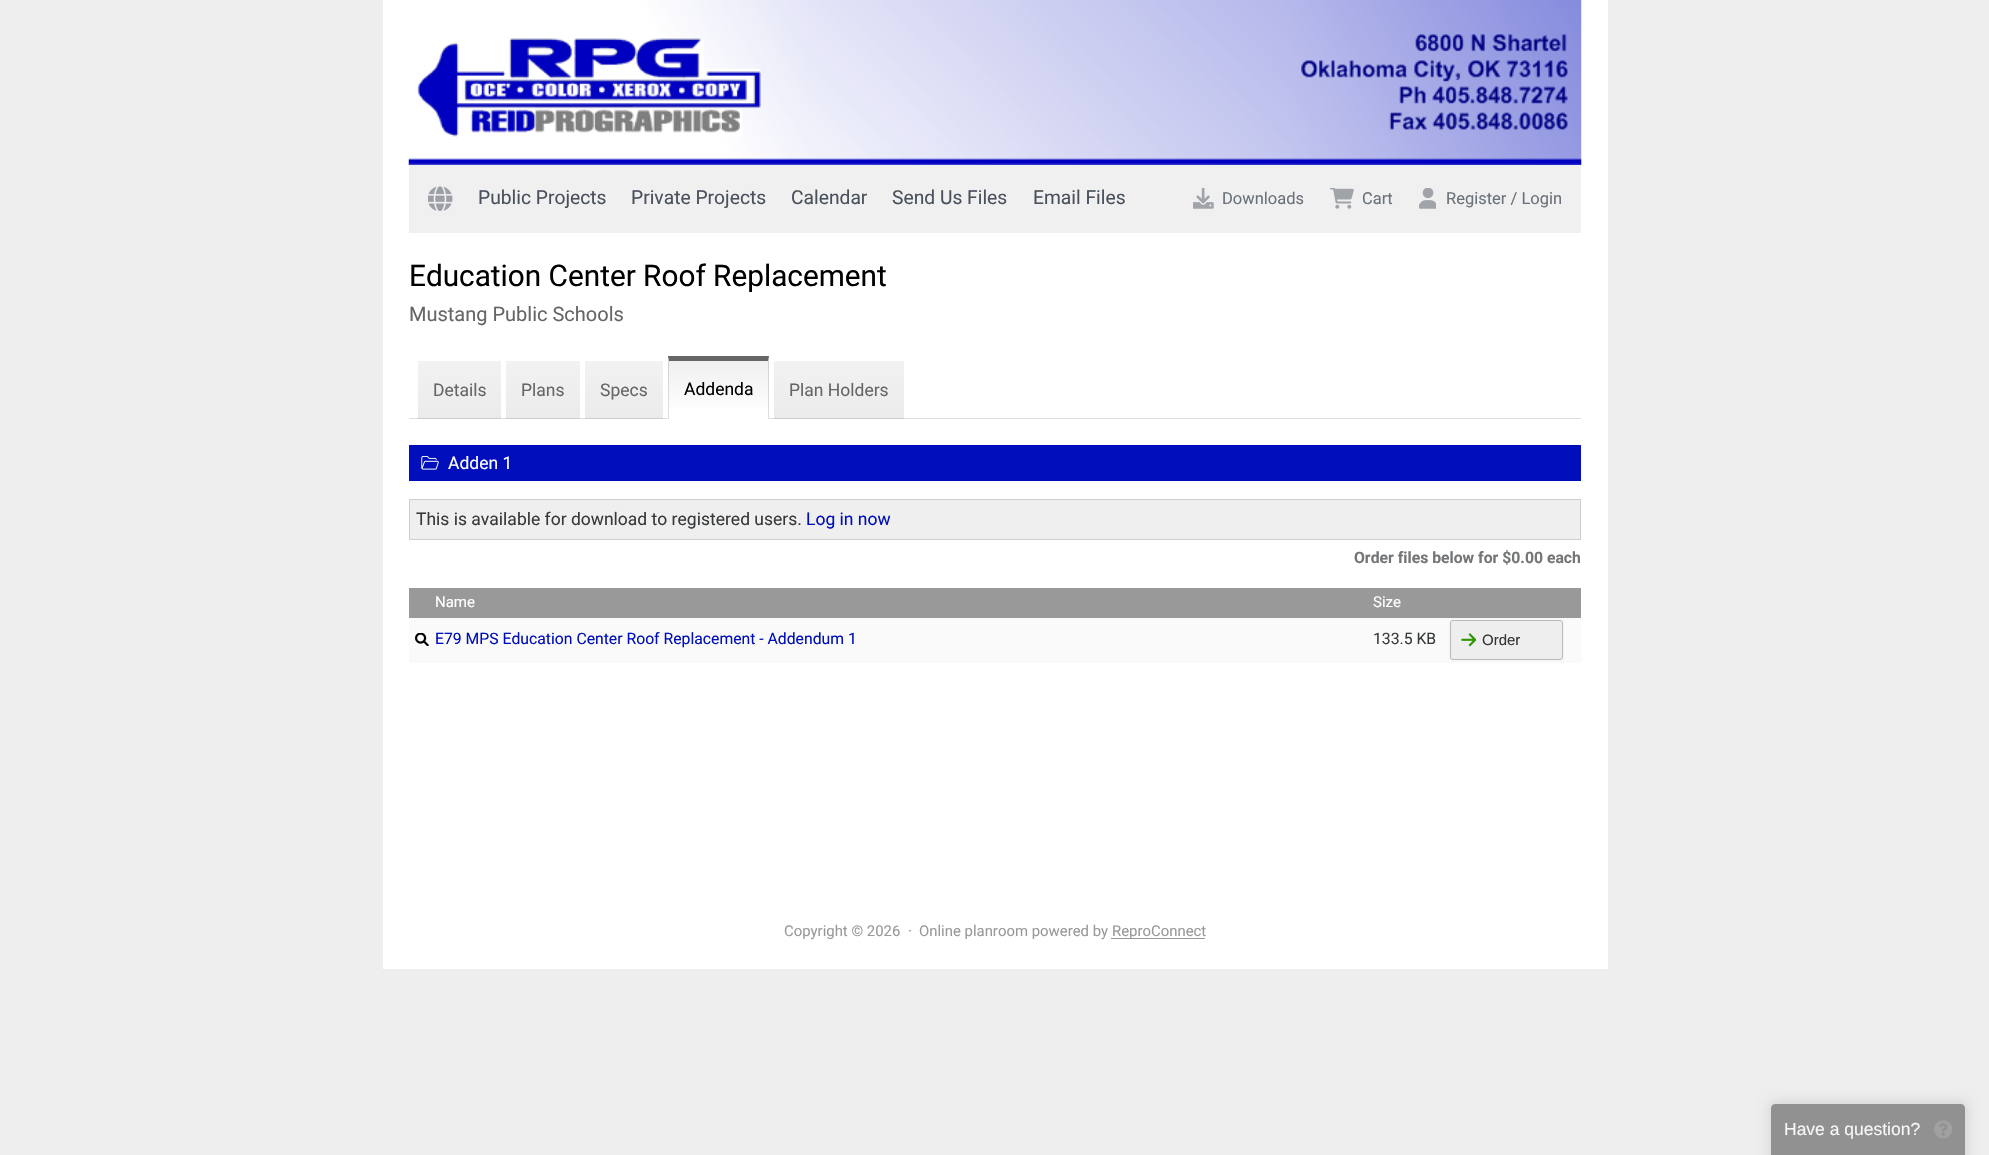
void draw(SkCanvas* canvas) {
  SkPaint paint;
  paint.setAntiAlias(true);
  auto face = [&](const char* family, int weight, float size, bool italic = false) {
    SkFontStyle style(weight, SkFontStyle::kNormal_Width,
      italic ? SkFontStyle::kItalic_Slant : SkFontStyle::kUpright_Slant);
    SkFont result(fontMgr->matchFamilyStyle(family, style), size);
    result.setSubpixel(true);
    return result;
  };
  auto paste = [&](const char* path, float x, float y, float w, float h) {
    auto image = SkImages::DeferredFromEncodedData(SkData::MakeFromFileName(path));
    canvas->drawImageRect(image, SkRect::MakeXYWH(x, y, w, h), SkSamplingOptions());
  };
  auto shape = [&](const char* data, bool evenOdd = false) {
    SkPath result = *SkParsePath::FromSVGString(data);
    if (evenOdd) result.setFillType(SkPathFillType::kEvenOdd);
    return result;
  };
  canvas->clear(0xffeeeeee);
  paint.setColor(0xffffffff);
  canvas->drawRect(SkRect::MakeXYWH(383, 0, 1225, 165), paint);
  paste("img/1.png", 408, 0, 1174, 165);
  canvas->drawRect(SkRect::MakeXYWH(383, 165, 1225, 804), paint);
  paint.setColor(0xfff0f0f0);
  canvas->drawRect(SkRect::MakeXYWH(409, 165, 1172, 68), paint);
  paste("img/2.png", 428, 186, 25, 25);
  paste("img/3.png", 1193, 188, 21, 21);
  paste("img/4.png", 1330, 188, 24, 21);
  paste("img/5.png", 1419, 188, 17, 21);
  paint.setColor(0xffdedede);
  canvas->drawRect(SkRect::MakeXYWH(409, 418, 1172, 1), paint);
  {
    const SkColor colors[] = {0x0d000000, 0x14000000};
    const float stops[] = {0, 1};
    const SkPoint ends[] = {{459, 361}, {459, 419}};
    paint.setShader(SkGradientShader::MakeLinear(ends, colors, stops, 2, SkTileMode::kClamp));
    paint.setAlpha(255);
  }
  canvas->drawRect(SkRect::MakeXYWH(418, 361, 83, 58), paint);
  {
    const SkColor colors[] = {0x0d000000, 0x14000000};
    const float stops[] = {0, 1};
    const SkPoint ends[] = {{543, 361}, {543, 419}};
    paint.setShader(SkGradientShader::MakeLinear(ends, colors, stops, 2, SkTileMode::kClamp));
    paint.setAlpha(255);
  }
  canvas->drawRect(SkRect::MakeXYWH(506, 361, 74, 58), paint);
  {
    const SkColor colors[] = {0x0d000000, 0x14000000};
    const float stops[] = {0, 1};
    const SkPoint ends[] = {{624, 361}, {624, 419}};
    paint.setShader(SkGradientShader::MakeLinear(ends, colors, stops, 2, SkTileMode::kClamp));
    paint.setAlpha(255);
  }
  canvas->drawRect(SkRect::MakeXYWH(585, 361, 78, 58), paint);
  {
    const SkColor colors[] = {0xfff0f0f0, 0xffffffff};
    const float stops[] = {0, 1};
    const SkPoint ends[] = {{718, 361}, {718, 418}};
    paint.setShader(SkGradientShader::MakeLinear(ends, colors, stops, 2, SkTileMode::kClamp));
    paint.setAlpha(255);
  }
  canvas->drawRect(SkRect::MakeXYWH(668, 361, 101, 48), paint);
  {
    const SkColor colors[] = {0xffd1d1d1, 0xffdedede};
    const float stops[] = {0, 1};
    const SkPoint ends[] = {{718, 418}, {718, 474}};
    paint.setShader(SkGradientShader::MakeLinear(ends, colors, stops, 2, SkTileMode::kClamp));
    paint.setAlpha(255);
  }
  canvas->drawRect(SkRect::MakeXYWH(668, 418, 101, 1), paint);
  paint.setShader(nullptr);
  paint.setColor(0xff666666);
  canvas->drawPath(shape("M668 356H769L768 361H669Z"), paint);
  paint.setColor(0x21000000);
  canvas->drawPath(shape("M769 356V419L768 418V361Z"), paint);
  paint.setColor(0xffffffff);
  canvas->drawPath(shape("M769 419H668L669 418H768Z"), paint);
  paint.setColor(0x21000000);
  canvas->drawPath(shape("M668 419V356L669 361V418Z"), paint);
  {
    const SkColor colors[] = {0x0d000000, 0x14000000};
    const float stops[] = {0, 1};
    const SkPoint ends[] = {{839, 361}, {839, 419}};
    paint.setShader(SkGradientShader::MakeLinear(ends, colors, stops, 2, SkTileMode::kClamp));
    paint.setAlpha(255);
  }
  canvas->drawRect(SkRect::MakeXYWH(774, 361, 130, 58), paint);
  paint.setShader(nullptr);
  paint.setColor(0xff000fbb);
  canvas->drawRect(SkRect::MakeXYWH(409, 445, 1172, 36), paint);
  paste("img/6.png", 421, 456, 18, 14);
  paint.setColor(0xffefefef);
  canvas->drawRect(SkRect::MakeXYWH(409.5f, 499.5f, 1171, 40), paint);
  paint.setStroke(true);
  paint.setStrokeWidth(1);
  paint.setColor(0xffcecece);
  canvas->drawRect(SkRect::MakeXYWH(409.5f, 499.5f, 1171, 40), paint);
  paint.setStroke(false);
  paint.setColor(0xff999999);
  canvas->drawRect(SkRect::MakeXYWH(409, 588, 1172, 30), paint);
  paint.setColor(0xfffafafa);
  canvas->drawRect(SkRect::MakeXYWH(409, 618, 1172, 45), paint);
  paste("img/7.png", 415, 633, 14, 13);
  paint.setColor(0x0d000000);
  paint.setMaskFilter(SkMaskFilter::MakeBlur(kNormal_SkBlurStyle, 1));
  canvas->drawRoundRect(SkRect::MakeXYWH(1450, 620, 113, 40), 3, 3, paint);
  paint.setMaskFilter(nullptr);
  paint.setColor(0xffeeeeee);
  canvas->drawRoundRect(SkRect::MakeXYWH(1450.5f, 620.5f, 112, 39), 2.5f, 2.5f, paint);
  paint.setStroke(true);
  paint.setColor(0xffbbbbbb);
  canvas->drawRoundRect(SkRect::MakeXYWH(1450.5f, 620.5f, 112, 39), 2.5f, 2.5f, paint);
  paste("img/8.png", 1461, 633, 15, 14);
  paint.setStroke(false);
  paint.setColor(0xff999999);
  canvas->drawRect(SkRect::MakeXYWH(1111, 938, 94, 1), paint);
  canvas->save();
  canvas->clipPath(shape("M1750 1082H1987V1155H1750ZM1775 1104H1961C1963 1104 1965 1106 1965 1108V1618H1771V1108C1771 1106 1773 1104 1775 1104Z", true), true);
  paint.setColor(0x1a000000);
  paint.setMaskFilter(SkMaskFilter::MakeBlur(kNormal_SkBlurStyle, 6));
  canvas->drawRoundRect(SkRect::MakeXYWH(1769, 1101, 199, 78), 6, 6, paint);
  paint.setMaskFilter(nullptr);
  canvas->restore();
  paint.setColor(0x80333333);
  canvas->drawPath(shape("M1775 1104H1961C1963 1104 1965 1106 1965 1108V1155H1771V1108C1771 1106 1773 1104 1775 1104Z"), paint);
  paste("img/9.png", 1934, 1120, 18, 19);
  auto f0 = face("Roboto", 400, 19.25f);
  paint.setColor(0xff49515c);
  {
    const struct { const char* s; float x, y; } items[] = {
      {"Public Projects", 478, 204},
      {"Private Projects", 631, 204},
      {"Calendar", 791, 204},
      {"Send Us Files", 892, 204},
      {"Email Files", 1033, 204},
    };
    for (auto [s, x, y] : items) {
      canvas->drawString(s, x, y, f0, paint);
    }
  }
  auto f1 = face("Roboto", 400, 16.5f);
  paint.setColor(0xff6a717a);
  {
    const struct { const char* s; float x, y; } items[] = {
      {"Downloads", 1222, 204},
      {"Cart", 1362, 204},
      {"Register / Login", 1446, 204},
    };
    for (auto [s, x, y] : items) {
      canvas->drawString(s, x, y, f1, paint);
    }
  }
  auto f2 = face("Roboto", 400, 29.75f);
  paint.setColor(0xff000000);
  canvas->drawString("Education Center Roof Replacement", 409, 286, f2, paint);
  auto f3 = face("Roboto", 400, 20);
  paint.setColor(0xff666666);
  canvas->drawString("Mustang Public Schools", 409, 321, f3, paint);
  auto f4 = face("Roboto", 400, 17.5f);
  {
    const struct { const char* s; float x, y; } items[] = {
      {"Details", 433, 396},
      {"Plans", 521, 396},
      {"Specs", 600, 396},
    };
    for (auto [s, x, y] : items) {
      canvas->drawString(s, x, y, f4, paint);
    }
  }
  paint.setColor(0xff000000);
  canvas->drawString("Addenda", 684, 395, f4, paint);
  paint.setColor(0xff666666);
  canvas->drawString("Plan Holders", 789, 396, f4, paint);
  paint.setColor(0xffffffff);
  canvas->drawString("Adden 1", 448, 469, f4, paint);
  paint.setColor(0xff373a3c);
  canvas->drawString("This is available for download to registered users.", 416, 525, f4, paint);
  paint.setColor(0xff000fbb);
  canvas->drawString("Log in now", 806, 525, f4, paint);
  auto f5 = face("Roboto", 700, 15.75f);
  paint.setColor(0xff737577);
  canvas->drawString("Order files below for $0.00 each", 1354, 563, f5, paint);
  auto f6 = face("Roboto", 400, 15);
  paint.setColor(0xffffffff);
  canvas->drawString("Name", 435, 607, f6, paint);
  canvas->drawString("Size", 1373, 607, f6, paint);
  auto f7 = face("Roboto", 400, 15.75f);
  paint.setColor(0xff000fbb);
  canvas->drawString("E79 MPS Education Center Roof Replacement - Addendum 1", 435, 644, f7, paint);
  paint.setColor(0xff373a3c);
  canvas->drawString("133.5 KB", 1373, 644, f7, paint);
  auto f8 = face("Liberation Sans", 400, 15);
  paint.setColor(0xff333333);
  canvas->drawString("Order", 1482, 645, f8, paint);
  auto f9 = face("Roboto", 400, 14.9f);
  paint.setColor(0xff999999);
  {
    const struct { const char* s; float x, y; } items[] = {
      {"Copyright © 2026", 784, 936},
      {"·", 908, 936},
      {"Online planroom powered by", 919, 936},
      {"ReproConnect", 1112, 936},
    };
    for (auto [s, x, y] : items) {
      canvas->drawString(s, x, y, f9, paint);
    }
  }
  auto f10 = face("Liberation Sans", 400, 17.5f);
  paint.setColor(0xfff7f7f7);
  canvas->drawString("Have a question?", 1784, 1135, f10, paint);
}
